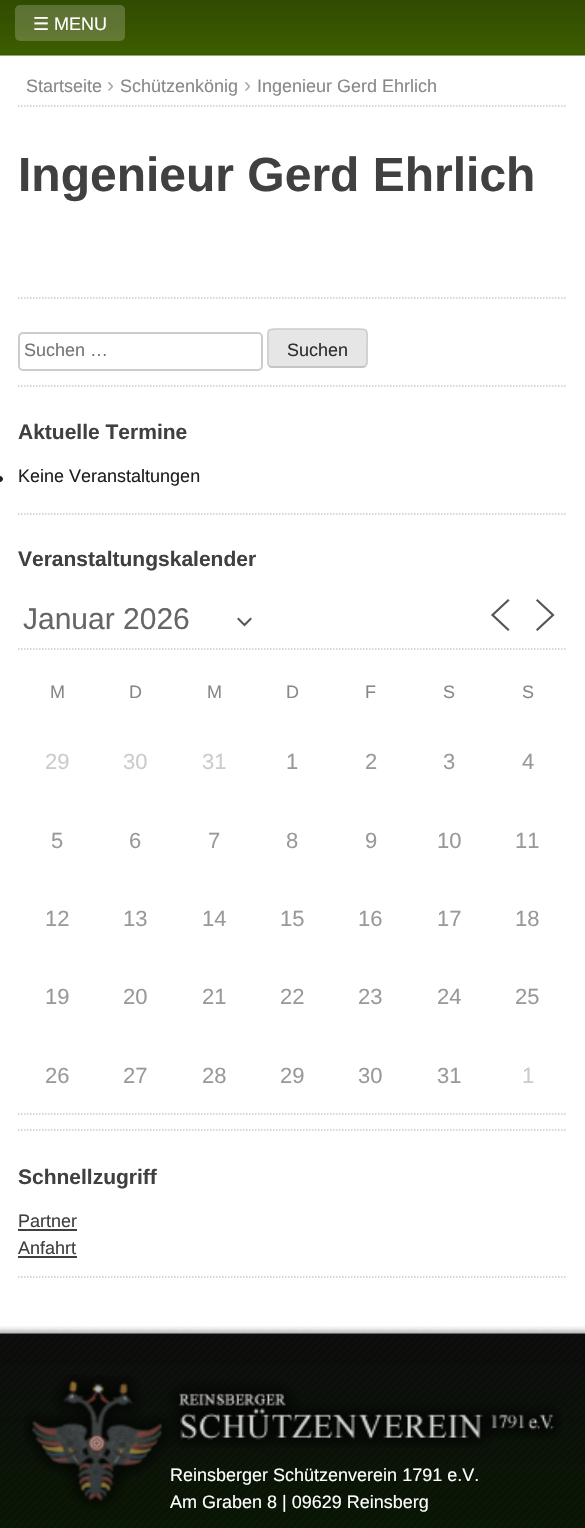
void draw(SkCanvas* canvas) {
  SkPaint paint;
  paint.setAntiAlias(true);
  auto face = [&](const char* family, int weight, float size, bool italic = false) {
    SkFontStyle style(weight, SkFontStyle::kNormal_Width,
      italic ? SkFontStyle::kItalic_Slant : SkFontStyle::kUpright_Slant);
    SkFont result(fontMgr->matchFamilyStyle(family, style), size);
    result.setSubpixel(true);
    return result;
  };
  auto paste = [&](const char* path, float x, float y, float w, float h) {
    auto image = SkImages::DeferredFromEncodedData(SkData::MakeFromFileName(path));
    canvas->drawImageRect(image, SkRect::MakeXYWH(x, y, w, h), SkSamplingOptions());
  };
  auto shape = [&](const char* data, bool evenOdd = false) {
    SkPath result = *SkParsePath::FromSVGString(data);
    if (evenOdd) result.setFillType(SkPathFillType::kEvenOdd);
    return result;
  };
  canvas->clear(0xffffffff);
  paste("img/1.png", 0, 0, 585, 56);
  paint.setColor(0x33ffffff);
  canvas->drawRoundRect(SkRect::MakeXYWH(15, 5, 110, 36), 5, 5, paint);
  paint.setStroke(true);
  paint.setStrokeWidth(1.5f);
  paint.setColor(0xffcccccc);
  paint.setPathEffect(SkDashPathEffect::Make({{1.5f, 1.5f}}, 0));
  canvas->drawPath(shape("M18 106H567"), paint);
  paint.setPathEffect(nullptr);
  paint.setPathEffect(SkDashPathEffect::Make({{1.5f, 1.5f}}, 0));
  canvas->drawPath(shape("M18 298H567"), paint);
  paint.setPathEffect(nullptr);
  paint.setPathEffect(SkDashPathEffect::Make({{1.5f, 1.5f}}, 0));
  canvas->drawPath(shape("M18 386H567"), paint);
  paint.setPathEffect(nullptr);
  paint.setStrokeWidth(2);
  canvas->drawRoundRect(SkRect::MakeXYWH(19, 333, 243, 37), 4, 4, paint);
  paint.setStroke(false);
  paint.setColor(0xffe6e6e6);
  canvas->drawRoundRect(SkRect::MakeXYWH(267, 329, 101, 39), 5, 5, paint);
  paint.setStroke(true);
  paint.setStrokeWidth(1.5f);
  paint.setColor(0xffbbbbbb);
  canvas->drawPath(shape("M365.5 365.5C365 366.5 364 367 363 367H271.5C270.5 367 269.5 366.5 269 365.5"), paint);
  paint.setColor(0xffcccccc);
  canvas->drawPath(shape("M269 365.5C267 364 268 360 268 358V348C268 326 264 329 287 329H348C370.5 329 367 326 367 348V358C367 360 367.5 364 365.5 365.5"), paint);
  paint.setPathEffect(SkDashPathEffect::Make({{1.5f, 1.5f}}, 0));
  canvas->drawPath(shape("M18 514H567"), paint);
  paint.setPathEffect(nullptr);
  paint.setStroke(false);
  paint.setColor(0xff212121);
  canvas->drawPath(shape("M0 476C1.5 476 3 477.5 3 479C3 480.5 1.5 482 0 482Z"), paint);
  paint.setStroke(true);
  paint.setColor(0xffcccccc);
  paint.setPathEffect(SkDashPathEffect::Make({{1.5f, 1.5f}}, 0));
  canvas->drawPath(shape("M18 1130H567"), paint);
  paint.setPathEffect(nullptr);
  paint.setPathEffect(SkDashPathEffect::Make({{1.5f, 1.5f}}, 0));
  canvas->drawPath(shape("M18 649H567"), paint);
  paint.setPathEffect(nullptr);
  paint.setStrokeWidth(2);
  paint.setStrokeCap(SkPaint::kSquare_Cap);
  paint.setColor(0xff555555);
  canvas->drawPath(shape("M238.5 619L244.5 625L250.5 619"), paint);
  paint.setStrokeWidth(2.2f);
  canvas->drawPath(shape("M508 629.5L492.5 615L508 600.5"), paint);
  canvas->drawPath(shape("M537.5 629.5L553 615L537.5 600.5"), paint);
  paint.setStrokeWidth(1.5f);
  paint.setStrokeCap(SkPaint::kButt_Cap);
  paint.setColor(0xffcccccc);
  paint.setPathEffect(SkDashPathEffect::Make({{1.5f, 1.5f}}, 0));
  canvas->drawPath(shape("M18 1114H567"), paint);
  paint.setPathEffect(nullptr);
  paint.setPathEffect(SkDashPathEffect::Make({{1.5f, 1.5f}}, 0));
  canvas->drawPath(shape("M18 1277H567"), paint);
  paint.setPathEffect(nullptr);
  paint.setStroke(false);
  paint.setColor(0xff404040);
  canvas->drawRect(SkRect::MakeXYWH(18, 1229, 59, 2), paint);
  canvas->drawRect(SkRect::MakeXYWH(18, 1256, 59, 2), paint);
  paste("img/2.png", 0, 1326, 585, 202);
  paste("img/3.png", 24, 1375, 537, 135);
  auto f0 = face("DejaVu Sans", 400, 18);
  paint.setColor(0xffffffff);
  canvas->drawString("☰", 33, 30, f0, paint);
  auto f1 = face("Liberation Sans", 400, 18);
  canvas->drawString("MENU", 54, 30, f1, paint);
  paint.setColor(0xff888888);
  canvas->drawString("Startseite", 26, 92, f1, paint);
  auto f2 = face("Liberation Sans", 400, 21);
  paint.setColor(0xffaaaaaa);
  canvas->drawString("›", 107, 92, f2, paint);
  paint.setColor(0xff888888);
  canvas->drawString("Schützenkönig", 120, 92, f1, paint);
  paint.setColor(0xffaaaaaa);
  canvas->drawString("›", 244, 92, f2, paint);
  paint.setColor(0xff888888);
  canvas->drawString("Ingenieur Gerd Ehrlich", 257, 92, f1, paint);
  auto f3 = face("Liberation Sans", 700, 48);
  paint.setColor(0xff404040);
  canvas->drawString("Ingenieur Gerd Ehrlich", 18, 191, f3, paint);
  paint.setColor(0xff757575);
  canvas->drawString("Suchen …", 24, 356, f1, paint);
  paint.setColor(0xff2e2e2e);
  canvas->drawString("Suchen", 287, 356, f1, paint);
  auto f4 = face("Liberation Sans", 700, 21);
  paint.setColor(0xff404040);
  canvas->drawString("Aktuelle Termine", 18, 439, f4, paint);
  paint.setColor(0xff212121);
  canvas->drawString("Keine Veranstaltungen", 18, 482, f1, paint);
  paint.setColor(0xff404040);
  canvas->drawString("Veranstaltungskalender", 18, 566, f4, paint);
  auto f5 = face("Liberation Sans", 400, 30);
  paint.setColor(0xff666666);
  canvas->drawString("Januar 2026", 23, 629, f5, paint);
  paint.setColor(0xff888888);
  {
    const struct { const char* s; float x, y; } items[] = {
      {"M", 50, 698},
      {"D", 129, 698},
      {"M", 207, 698},
      {"D", 286, 698},
      {"F", 365, 698},
      {"S", 443, 698},
      {"S", 522, 698},
    };
    for (auto [s, x, y] : items) {
      canvas->drawString(s, x, y, f1, paint);
    }
  }
  auto f6 = face("Liberation Sans", 400, 22);
  paint.setColor(0xffcccccc);
  {
    const struct { const char* s; float x, y; } items[] = {
      {"29", 45, 769},
      {"30", 123, 769},
      {"31", 202, 769},
    };
    for (auto [s, x, y] : items) {
      canvas->drawString(s, x, y, f6, paint);
    }
  }
  paint.setColor(0xff999999);
  {
    const struct { const char* s; float x, y; } items[] = {
      {"1", 286, 769},
      {"2", 365, 769},
      {"3", 443, 769},
      {"4", 522, 769},
      {"5", 51, 848},
      {"6", 129, 848},
      {"7", 208, 848},
      {"8", 286, 848},
      {"9", 365, 848},
      {"10", 437, 848},
      {"11", 515, 848},
      {"12", 45, 926},
      {"13", 123, 926},
      {"14", 202, 926},
      {"15", 280, 926},
      {"16", 358, 926},
      {"17", 437, 926},
      {"18", 515, 926},
      {"19", 45, 1004},
      {"20", 123, 1004},
      {"21", 202, 1004},
      {"22", 280, 1004},
      {"23", 358, 1004},
      {"24", 437, 1004},
      {"25", 515, 1004},
      {"26", 45, 1083},
      {"27", 123, 1083},
      {"28", 202, 1083},
      {"29", 280, 1083},
      {"30", 358, 1083},
      {"31", 437, 1083},
    };
    for (auto [s, x, y] : items) {
      canvas->drawString(s, x, y, f6, paint);
    }
  }
  paint.setColor(0xffcccccc);
  canvas->drawString("1", 522, 1083, f6, paint);
  paint.setColor(0xff404040);
  canvas->drawString("Schnellzugriff", 18, 1184, f4, paint);
  canvas->drawString("Partner", 18, 1227, f1, paint);
  canvas->drawString("Anfahrt", 18, 1254, f1, paint);
  paint.setColor(0xffffffff);
  canvas->drawString("Reinsberger Schützenverein 1791 e.V.", 170, 1481, f1, paint);
  canvas->drawString("Am Graben 8 | 09629 Reinsberg", 170, 1508, f1, paint);
}
